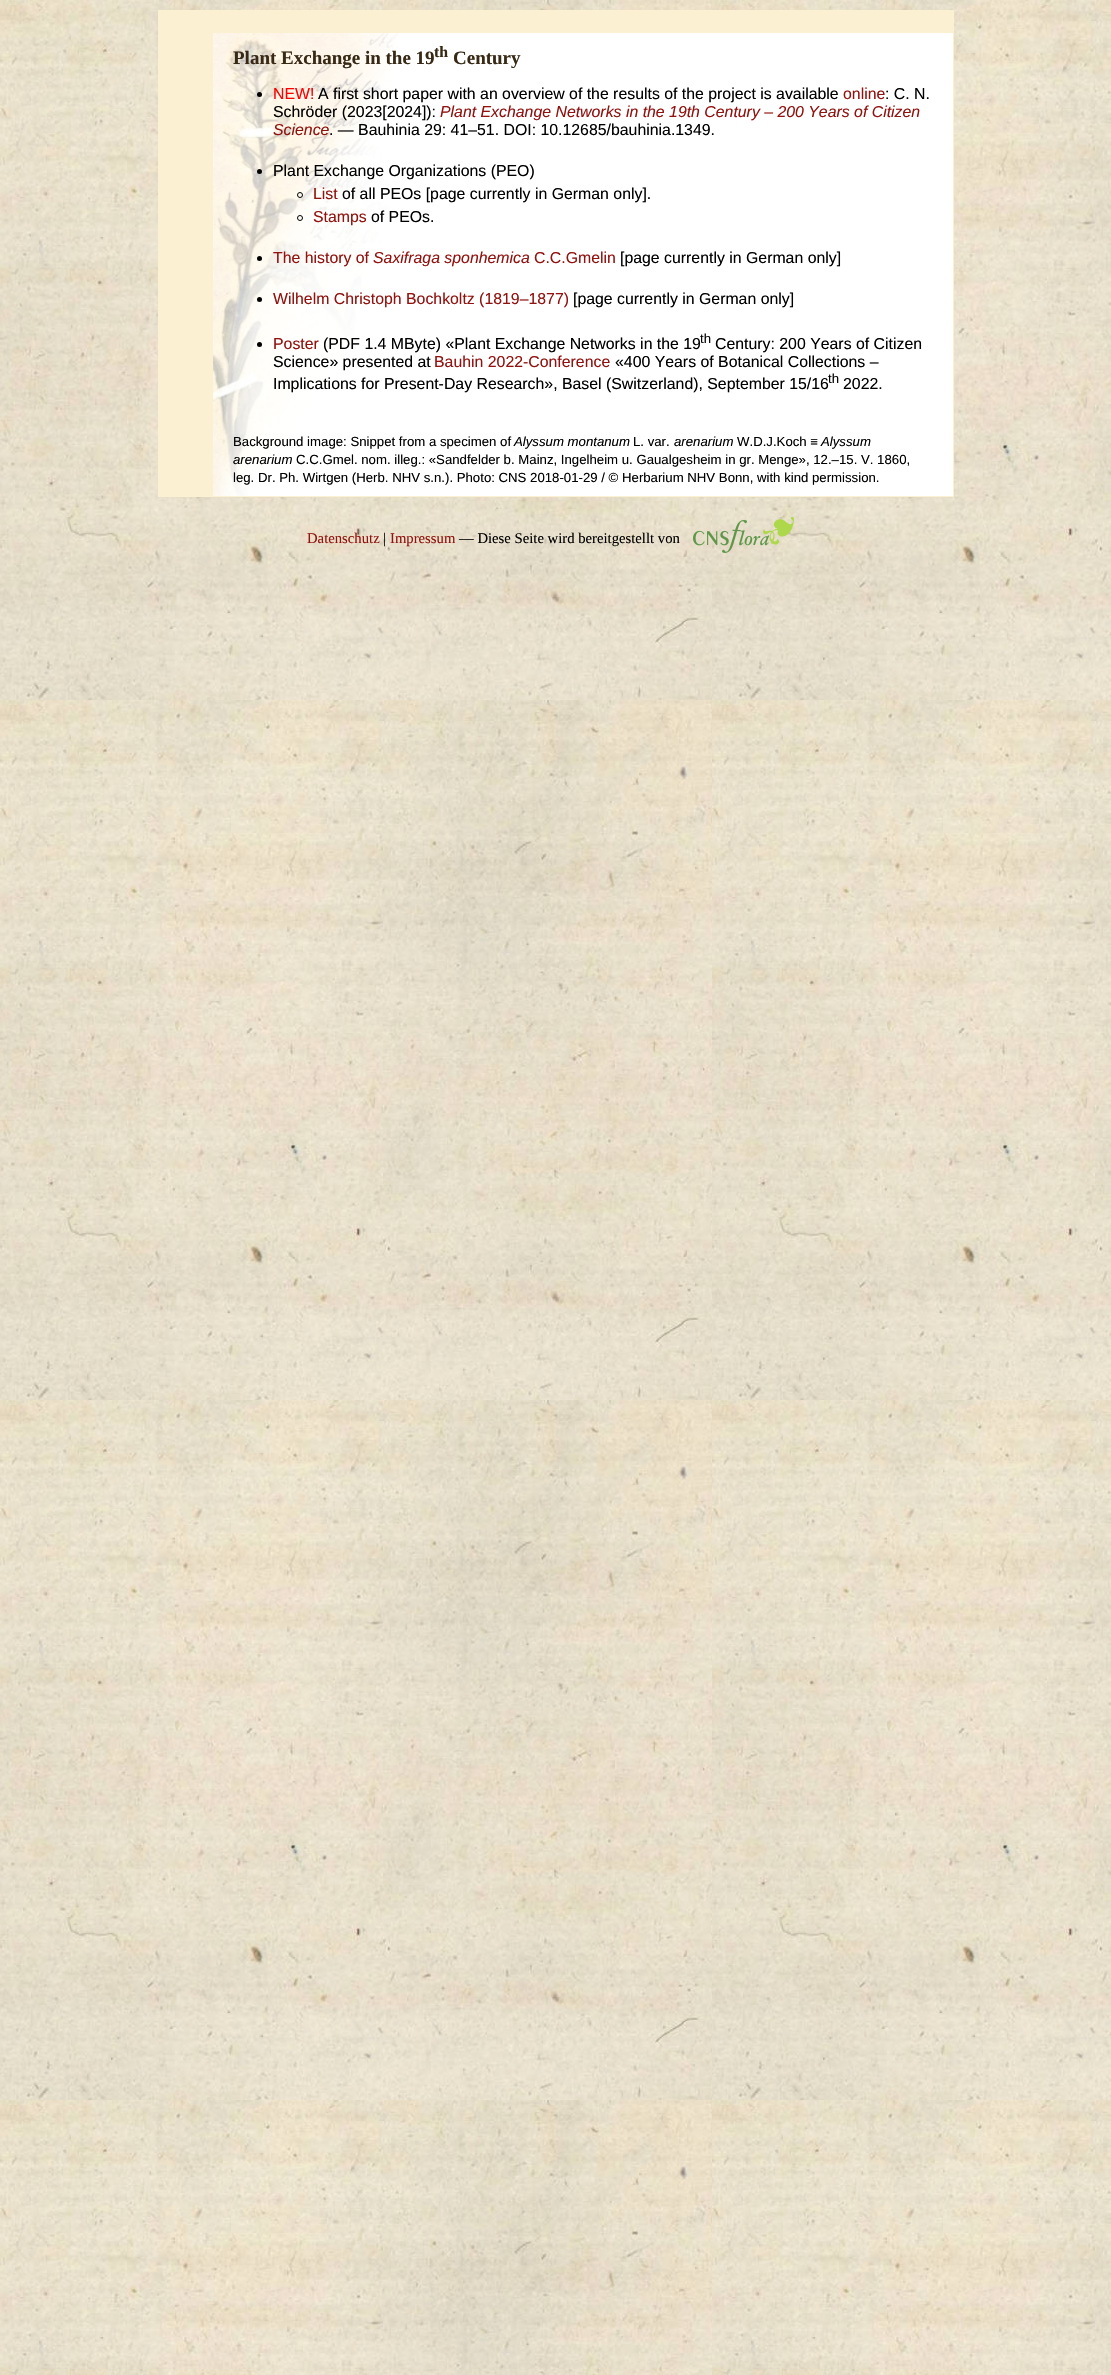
void draw(SkCanvas* canvas) {
  SkPaint paint;
  paint.setAntiAlias(true);
  auto face = [&](const char* family, int weight, float size, bool italic = false) {
    SkFontStyle style(weight, SkFontStyle::kNormal_Width,
      italic ? SkFontStyle::kItalic_Slant : SkFontStyle::kUpright_Slant);
    SkFont result(fontMgr->matchFamilyStyle(family, style), size);
    result.setSubpixel(true);
    return result;
  };
  auto paste = [&](const char* path, float x, float y, float w, float h) {
    auto image = SkImages::DeferredFromEncodedData(SkData::MakeFromFileName(path));
    canvas->drawImageRect(image, SkRect::MakeXYWH(x, y, w, h), SkSamplingOptions());
  };
  canvas->clear(0xffffffff);
  paste("img/1.png", 0, 0, 1111, 2375);
  paint.setColor(0xfffcf0d2);
  canvas->drawRect(SkRect::MakeXYWH(158, 10, 796, 487), paint);
  paint.setColor(0xffffffff);
  canvas->drawRect(SkRect::MakeXYWH(398, 33, 555, 463), paint);
  paste("img/2.png", 213, 33, 185, 463);
  paint.setColor(0xff000000);
  canvas->drawCircle(259.5f, 94.5f, 2.5f, paint);
  canvas->drawCircle(259.5f, 171.5f, 2.5f, paint);
  paint.setStroke(true);
  paint.setStrokeWidth(1);
  canvas->drawCircle(300, 195, 2.5f, paint);
  canvas->drawCircle(300, 218, 2.5f, paint);
  paint.setStroke(false);
  canvas->drawCircle(259.5f, 258.5f, 2.5f, paint);
  canvas->drawCircle(259.5f, 299.5f, 2.5f, paint);
  canvas->drawCircle(259.5f, 344.5f, 2.5f, paint);
  paste("img/3.png", 693, 517, 101, 36);
  auto f0 = face("Liberation Serif", 700, 19);
  paint.setColor(0xff382915);
  canvas->drawString("Plant Exchange in the 19", 233, 64, f0, paint);
  auto f1 = face("Liberation Serif", 700, 15.85f);
  canvas->drawString("th", 434, 57, f1, paint);
  canvas->drawString("Century", 453, 64, f0, paint);
  auto f2 = face("Liberation Sans", 400, 15.85f);
  paint.setColor(0xffff0000);
  canvas->drawString("NEW!", 273, 99, f2, paint);
  paint.setColor(0xff000000);
  canvas->drawString("A first short paper with an overview of the results of the project is available", 318, 99, f2, paint);
  paint.setColor(0xff91120f);
  canvas->drawString("online", 843, 99, f2, paint);
  paint.setColor(0xff000000);
  canvas->drawString(": C. N.", 885, 99, f2, paint);
  canvas->drawString("Schröder (2023[2024]):", 273, 117, f2, paint);
  auto f3 = face("Liberation Sans", 400, 15.85f, true);
  paint.setColor(0xff91120f);
  canvas->drawString("Plant Exchange Networks in the 19th Century – 200 Years of Citizen", 440, 117, f3, paint);
  canvas->drawString("Science", 273, 135, f3, paint);
  paint.setColor(0xff000000);
  canvas->drawString(". — Bauhinia 29: 41–51. DOI: 10.12685/bauhinia.1349.", 329, 135, f2, paint);
  canvas->drawString("Plant Exchange Organizations (PEO)", 273, 176, f2, paint);
  paint.setColor(0xff91120f);
  canvas->drawString("List", 313, 199, f2, paint);
  paint.setColor(0xff000000);
  canvas->drawString("of all PEOs [page currently in German only].", 342, 199, f2, paint);
  paint.setColor(0xff91120f);
  canvas->drawString("Stamps", 313, 222, f2, paint);
  paint.setColor(0xff000000);
  canvas->drawString("of PEOs.", 371, 222, f2, paint);
  paint.setColor(0xff91120f);
  canvas->drawString("The history of", 273, 263, f2, paint);
  canvas->drawString("Saxifraga sponhemica", 373, 263, f3, paint);
  canvas->drawString("C.C.Gmelin", 534, 263, f2, paint);
  paint.setColor(0xff000000);
  canvas->drawString("[page currently in German only]", 620, 263, f2, paint);
  paint.setColor(0xff91120f);
  canvas->drawString("Wilhelm Christoph Bochkoltz (1819–1877)", 273, 304, f2, paint);
  paint.setColor(0xff000000);
  canvas->drawString("[page currently in German only]", 573, 304, f2, paint);
  paint.setColor(0xff91120f);
  canvas->drawString("Poster", 273, 349, f2, paint);
  paint.setColor(0xff000000);
  canvas->drawString("(PDF 1.4 MByte) «Plant Exchange Networks in the 19", 323, 349, f2, paint);
  auto f4 = face("Liberation Sans", 400, 13.2f);
  canvas->drawString("th", 700, 343, f4, paint);
  canvas->drawString("Century: 200 Years of Citizen", 715, 349, f2, paint);
  canvas->drawString("Science» presented at", 273, 367, f2, paint);
  paint.setColor(0xff91120f);
  canvas->drawString("Bauhin 2022-Conference", 434, 367, f2, paint);
  paint.setColor(0xff000000);
  canvas->drawString("«400 Years of Botanical Collections –", 615, 367, f2, paint);
  canvas->drawString("Implications for Present-Day Research», Basel (Switzerland), September 15/16", 273, 389, f2, paint);
  canvas->drawString("th", 828, 383, f4, paint);
  canvas->drawString("2022.", 843, 389, f2, paint);
  canvas->drawString("Background image: Snippet from a specimen of", 233, 446, f4, paint);
  auto f5 = face("Liberation Sans", 400, 13.2f, true);
  canvas->drawString("Alyssum montanum", 514, 446, f5, paint);
  canvas->drawString("L. var.", 633, 446, f4, paint);
  canvas->drawString("arenarium", 674, 446, f5, paint);
  canvas->drawString("W.D.J.Koch ≡", 737, 446, f4, paint);
  canvas->drawString("Alyssum", 821, 446, f5, paint);
  canvas->drawString("arenarium", 233, 464, f5, paint);
  canvas->drawString("C.C.Gmel. nom. illeg.: «Sandfelder b. Mainz, Ingelheim u. Gaualgesheim in gr. Menge», 12.–15. V. 1860,", 296, 464, f4, paint);
  canvas->drawString("leg. Dr. Ph. Wirtgen (Herb. NHV s.n.). Photo: CNS 2018-01-29 / © Herbarium NHV Bonn, with kind permission.", 233, 482, f4, paint);
  auto f6 = face("Liberation Serif", 400, 14.7f);
  paint.setColor(0xff91120f);
  canvas->drawString("Datenschutz", 307, 543, f6, paint);
  paint.setColor(0xff000000);
  canvas->drawString("|", 383, 543, f6, paint);
  paint.setColor(0xff91120f);
  canvas->drawString("Impressum", 390, 543, f6, paint);
  paint.setColor(0xff000000);
  canvas->drawString("— Diese Seite wird bereitgestellt von", 459, 543, f6, paint);
}
